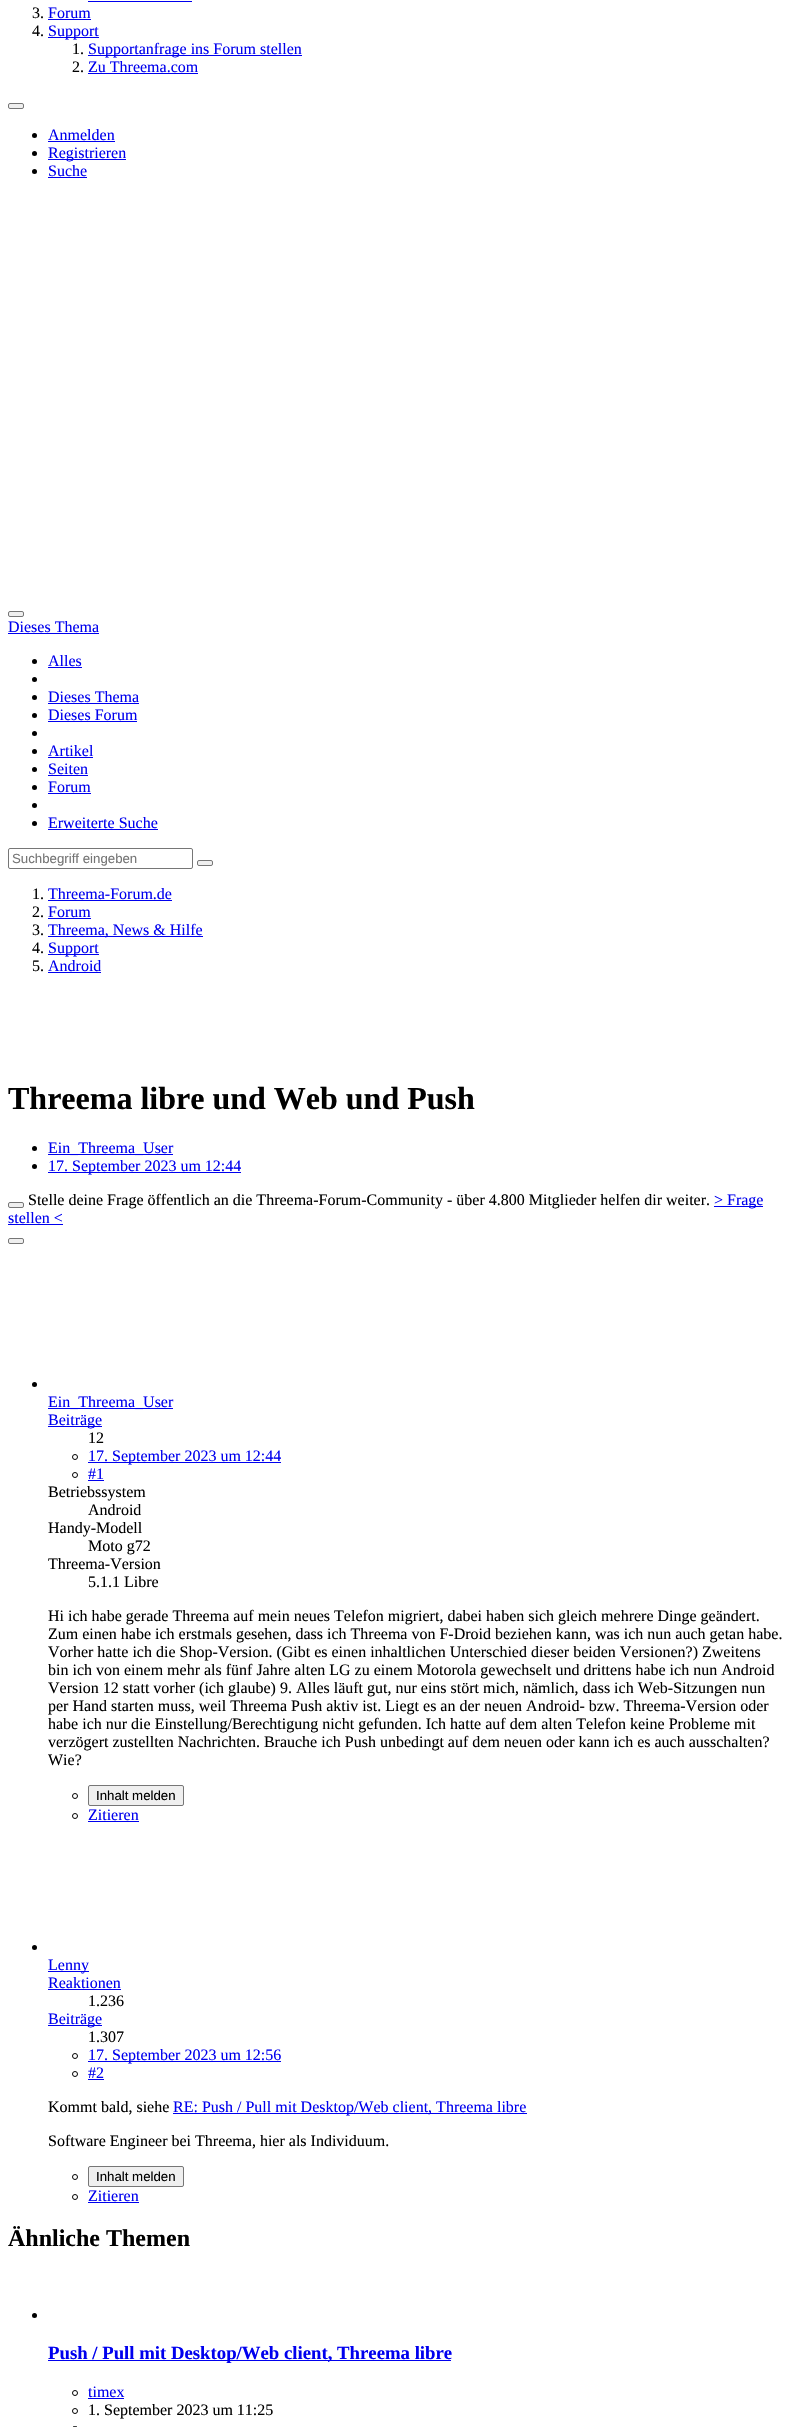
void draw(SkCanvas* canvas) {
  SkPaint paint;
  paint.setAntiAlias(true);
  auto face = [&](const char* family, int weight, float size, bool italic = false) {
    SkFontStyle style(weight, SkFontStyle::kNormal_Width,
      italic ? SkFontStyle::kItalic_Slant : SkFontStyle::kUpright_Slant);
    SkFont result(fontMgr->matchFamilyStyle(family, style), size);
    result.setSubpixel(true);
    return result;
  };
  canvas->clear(0xffffffff);
  {
    const struct { float x, y, w, h; SkColor color; } items[] = {
      {88, 1, 104, 1, 0xff0000ee},
      {48, 19, 43, 1, 0xff0000ee},
      {48, 37, 51, 1, 0xff0000ee},
      {88, 55, 214, 1, 0xff0000ee},
      {88, 73, 110, 1, 0xff0000ee},
    };
    for (auto [x, y, w, h, color] : items) {
      paint.setColor(color);
      canvas->drawRect(SkRect::MakeXYWH(x, y, w, h), paint);
    }
  }
  paint.setColor(0xffefefef);
  canvas->drawRoundRect(SkRect::MakeXYWH(8.5f, 103.5f, 15, 5), 1.5f, 1.5f, paint);
  paint.setStroke(true);
  paint.setStrokeWidth(1);
  paint.setColor(0xff767676);
  canvas->drawRoundRect(SkRect::MakeXYWH(8.5f, 103.5f, 15, 5), 1.5f, 1.5f, paint);
  paint.setStroke(false);
  paint.setColor(0xff000000);
  canvas->drawCircle(34.5f, 135.5f, 2.5f, paint);
  paint.setColor(0xff0000ee);
  canvas->drawRect(SkRect::MakeXYWH(48, 141, 67, 1), paint);
  paint.setColor(0xff000000);
  canvas->drawCircle(34.5f, 153.5f, 2.5f, paint);
  paint.setColor(0xff0000ee);
  canvas->drawRect(SkRect::MakeXYWH(48, 159, 78, 1), paint);
  paint.setColor(0xff000000);
  canvas->drawCircle(34.5f, 171.5f, 2.5f, paint);
  paint.setColor(0xff0000ee);
  canvas->drawRect(SkRect::MakeXYWH(48, 177, 39, 1), paint);
  paint.setColor(0xffefefef);
  canvas->drawRoundRect(SkRect::MakeXYWH(8.5f, 611.5f, 15, 5), 1.5f, 1.5f, paint);
  paint.setStroke(true);
  paint.setColor(0xff767676);
  canvas->drawRoundRect(SkRect::MakeXYWH(8.5f, 611.5f, 15, 5), 1.5f, 1.5f, paint);
  paint.setStroke(false);
  paint.setColor(0xff0000ee);
  canvas->drawRect(SkRect::MakeXYWH(8, 633, 91, 1), paint);
  paint.setColor(0xff000000);
  canvas->drawCircle(34.5f, 661.5f, 2.5f, paint);
  paint.setColor(0xff0000ee);
  canvas->drawRect(SkRect::MakeXYWH(48, 667, 34, 1), paint);
  paint.setColor(0xff000000);
  canvas->drawCircle(34.5f, 679.5f, 2.5f, paint);
  canvas->drawCircle(34.5f, 697.5f, 2.5f, paint);
  paint.setColor(0xff0000ee);
  canvas->drawRect(SkRect::MakeXYWH(48, 703, 91, 1), paint);
  paint.setColor(0xff000000);
  canvas->drawCircle(34.5f, 715.5f, 2.5f, paint);
  paint.setColor(0xff0000ee);
  canvas->drawRect(SkRect::MakeXYWH(48, 721, 89, 1), paint);
  paint.setColor(0xff000000);
  canvas->drawCircle(34.5f, 733.5f, 2.5f, paint);
  canvas->drawCircle(34.5f, 751.5f, 2.5f, paint);
  paint.setColor(0xff0000ee);
  canvas->drawRect(SkRect::MakeXYWH(48, 757, 45, 1), paint);
  paint.setColor(0xff000000);
  canvas->drawCircle(34.5f, 769.5f, 2.5f, paint);
  paint.setColor(0xff0000ee);
  canvas->drawRect(SkRect::MakeXYWH(48, 775, 40, 1), paint);
  paint.setColor(0xff000000);
  canvas->drawCircle(34.5f, 787.5f, 2.5f, paint);
  paint.setColor(0xff0000ee);
  canvas->drawRect(SkRect::MakeXYWH(48, 793, 43, 1), paint);
  paint.setColor(0xff000000);
  canvas->drawCircle(34.5f, 805.5f, 2.5f, paint);
  canvas->drawCircle(34.5f, 823.5f, 2.5f, paint);
  paint.setColor(0xff0000ee);
  canvas->drawRect(SkRect::MakeXYWH(48, 829, 110, 1), paint);
  paint.setStroke(true);
  paint.setColor(0xff767676);
  canvas->drawRoundRect(SkRect::MakeXYWH(8.5f, 848.5f, 184, 20), 1.5f, 1.5f, paint);
  paint.setStroke(false);
  paint.setColor(0xffefefef);
  canvas->drawRoundRect(SkRect::MakeXYWH(197.5f, 860.5f, 15, 5), 1.5f, 1.5f, paint);
  paint.setStroke(true);
  paint.setColor(0xff767676);
  canvas->drawRoundRect(SkRect::MakeXYWH(197.5f, 860.5f, 15, 5), 1.5f, 1.5f, paint);
  paint.setStroke(false);
  {
    const struct { float x, y, w, h; SkColor color; } items[] = {
      {48, 900, 124, 1, 0xff0000ee},
      {48, 918, 43, 1, 0xff0000ee},
      {48, 936, 155, 1, 0xff0000ee},
      {48, 954, 51, 1, 0xff0000ee},
      {48, 972, 53, 1, 0xff0000ee},
    };
    for (auto [x, y, w, h, color] : items) {
      paint.setColor(color);
      canvas->drawRect(SkRect::MakeXYWH(x, y, w, h), paint);
    }
  }
  paint.setColor(0xff000000);
  canvas->drawCircle(34.5f, 1148.5f, 2.5f, paint);
  paint.setColor(0xff0000ee);
  canvas->drawRect(SkRect::MakeXYWH(48, 1154, 125, 1), paint);
  paint.setColor(0xff000000);
  canvas->drawCircle(34.5f, 1166.5f, 2.5f, paint);
  paint.setColor(0xff0000ee);
  canvas->drawRect(SkRect::MakeXYWH(48, 1172, 193, 1), paint);
  paint.setColor(0xffefefef);
  canvas->drawRoundRect(SkRect::MakeXYWH(8.5f, 1202.5f, 15, 5), 1.5f, 1.5f, paint);
  paint.setStroke(true);
  paint.setColor(0xff767676);
  canvas->drawRoundRect(SkRect::MakeXYWH(8.5f, 1202.5f, 15, 5), 1.5f, 1.5f, paint);
  paint.setStroke(false);
  paint.setColor(0xff0000ee);
  canvas->drawRect(SkRect::MakeXYWH(714, 1206, 49, 1), paint);
  canvas->drawRect(SkRect::MakeXYWH(8, 1224, 55, 1), paint);
  paint.setColor(0xffefefef);
  canvas->drawRoundRect(SkRect::MakeXYWH(8.5f, 1238.5f, 15, 5), 1.5f, 1.5f, paint);
  paint.setStroke(true);
  paint.setColor(0xff767676);
  canvas->drawRoundRect(SkRect::MakeXYWH(8.5f, 1238.5f, 15, 5), 1.5f, 1.5f, paint);
  paint.setStroke(false);
  paint.setColor(0xff000000);
  canvas->drawCircle(34.5f, 1384.5f, 2.5f, paint);
  paint.setColor(0xff0000ee);
  canvas->drawRect(SkRect::MakeXYWH(48, 1408, 125, 1), paint);
  canvas->drawRect(SkRect::MakeXYWH(48, 1426, 54, 1), paint);
  paint.setStroke(true);
  paint.setColor(0xff000000);
  canvas->drawCircle(75, 1457, 2.5f, paint);
  paint.setStroke(false);
  paint.setColor(0xff0000ee);
  canvas->drawRect(SkRect::MakeXYWH(88, 1462, 193, 1), paint);
  paint.setStroke(true);
  paint.setColor(0xff000000);
  canvas->drawCircle(75, 1475, 2.5f, paint);
  paint.setStroke(false);
  paint.setColor(0xff0000ee);
  canvas->drawRect(SkRect::MakeXYWH(88, 1480, 16, 1), paint);
  paint.setStroke(true);
  paint.setColor(0xff000000);
  canvas->drawCircle(75, 1796, 2.5f, paint);
  paint.setStroke(false);
  paint.setColor(0xffefefef);
  canvas->drawRoundRect(SkRect::MakeXYWH(88.5f, 1785.5f, 95, 20), 1.5f, 1.5f, paint);
  paint.setStroke(true);
  paint.setColor(0xff767676);
  canvas->drawRoundRect(SkRect::MakeXYWH(88.5f, 1785.5f, 95, 20), 1.5f, 1.5f, paint);
  paint.setColor(0xff000000);
  canvas->drawCircle(75, 1816, 2.5f, paint);
  paint.setStroke(false);
  paint.setColor(0xff0000ee);
  canvas->drawRect(SkRect::MakeXYWH(88, 1821, 51, 1), paint);
  paint.setColor(0xff000000);
  canvas->drawCircle(34.5f, 1947.5f, 2.5f, paint);
  {
    const struct { float x, y, w, h; SkColor color; } items[] = {
      {48, 1971, 41, 1, 0xff0000ee},
      {48, 1989, 73, 1, 0xff0000ee},
      {48, 2025, 54, 1, 0xff0000ee},
    };
    for (auto [x, y, w, h, color] : items) {
      paint.setColor(color);
      canvas->drawRect(SkRect::MakeXYWH(x, y, w, h), paint);
    }
  }
  paint.setStroke(true);
  paint.setColor(0xff000000);
  canvas->drawCircle(75, 2056, 2.5f, paint);
  paint.setStroke(false);
  paint.setColor(0xff0000ee);
  canvas->drawRect(SkRect::MakeXYWH(88, 2061, 193, 1), paint);
  paint.setStroke(true);
  paint.setColor(0xff000000);
  canvas->drawCircle(75, 2074, 2.5f, paint);
  paint.setStroke(false);
  paint.setColor(0xff0000ee);
  canvas->drawRect(SkRect::MakeXYWH(88, 2079, 16, 1), paint);
  canvas->drawRect(SkRect::MakeXYWH(173, 2113, 354, 1), paint);
  paint.setStroke(true);
  paint.setColor(0xff000000);
  canvas->drawCircle(75, 2177, 2.5f, paint);
  paint.setStroke(false);
  paint.setColor(0xffefefef);
  canvas->drawRoundRect(SkRect::MakeXYWH(88.5f, 2166.5f, 95, 20), 1.5f, 1.5f, paint);
  paint.setStroke(true);
  paint.setColor(0xff767676);
  canvas->drawRoundRect(SkRect::MakeXYWH(88.5f, 2166.5f, 95, 20), 1.5f, 1.5f, paint);
  paint.setColor(0xff000000);
  canvas->drawCircle(75, 2197, 2.5f, paint);
  paint.setStroke(false);
  paint.setColor(0xff0000ee);
  canvas->drawRect(SkRect::MakeXYWH(88, 2202, 51, 1), paint);
  paint.setColor(0xff000000);
  canvas->drawCircle(34.5f, 2315.5f, 2.5f, paint);
  paint.setColor(0xff0000ee);
  canvas->drawRect(SkRect::MakeXYWH(48, 2360, 403, 1), paint);
  paint.setStroke(true);
  paint.setColor(0xff000000);
  canvas->drawCircle(75, 2393, 2.5f, paint);
  paint.setStroke(false);
  paint.setColor(0xff0000ee);
  canvas->drawRect(SkRect::MakeXYWH(88, 2398, 36, 1), paint);
  paint.setStroke(true);
  paint.setColor(0xff000000);
  canvas->drawCircle(75, 2411, 2.5f, paint);
  canvas->drawRoundRect(SkRect::MakeXYWH(72.5f, 2426.5f, 5, 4), 2.5f, 2.5f, paint);
  auto f0 = face("Liberation Serif", 400, 16);
  paint.setStroke(false);
  canvas->drawString("3.", 32, 18, f0, paint);
  paint.setColor(0xff0000ee);
  canvas->drawString("Forum", 48, 18, f0, paint);
  paint.setColor(0xff000000);
  canvas->drawString("4.", 32, 36, f0, paint);
  paint.setColor(0xff0000ee);
  canvas->drawString("Support", 48, 36, f0, paint);
  paint.setColor(0xff000000);
  canvas->drawString("1.", 72, 54, f0, paint);
  paint.setColor(0xff0000ee);
  canvas->drawString("Supportanfrage ins Forum stellen", 88, 54, f0, paint);
  paint.setColor(0xff000000);
  canvas->drawString("2.", 72, 72, f0, paint);
  paint.setColor(0xff0000ee);
  {
    const struct { const char* s; float x, y; } items[] = {
      {"Zu Threema.com", 88, 72},
      {"Anmelden", 48, 140},
      {"Registrieren", 48, 158},
      {"Suche", 48, 176},
      {"Dieses Thema", 8, 632},
      {"Alles", 48, 666},
      {"Dieses Thema", 48, 702},
      {"Dieses Forum", 48, 720},
      {"Artikel", 48, 756},
      {"Seiten", 48, 774},
      {"Forum", 48, 792},
      {"Erweiterte Suche", 48, 828},
    };
    for (auto [s, x, y] : items) {
      canvas->drawString(s, x, y, f0, paint);
    }
  }
  auto f1 = face("Liberation Sans", 400, 13.25f);
  paint.setColor(0xff757575);
  canvas->drawString("Suchbegriff eingeben", 12, 863, f1, paint);
  paint.setColor(0xff000000);
  canvas->drawString("1.", 32, 899, f0, paint);
  paint.setColor(0xff0000ee);
  canvas->drawString("Threema-Forum.de", 48, 899, f0, paint);
  paint.setColor(0xff000000);
  canvas->drawString("2.", 32, 917, f0, paint);
  paint.setColor(0xff0000ee);
  canvas->drawString("Forum", 48, 917, f0, paint);
  paint.setColor(0xff000000);
  canvas->drawString("3.", 32, 935, f0, paint);
  paint.setColor(0xff0000ee);
  canvas->drawString("Threema, News & Hilfe", 48, 935, f0, paint);
  paint.setColor(0xff000000);
  canvas->drawString("4.", 32, 953, f0, paint);
  paint.setColor(0xff0000ee);
  canvas->drawString("Support", 48, 953, f0, paint);
  paint.setColor(0xff000000);
  canvas->drawString("5.", 32, 971, f0, paint);
  paint.setColor(0xff0000ee);
  canvas->drawString("Android", 48, 971, f0, paint);
  auto f2 = face("Liberation Serif", 700, 32);
  paint.setColor(0xff000000);
  canvas->drawString("Threema libre und Web und Push", 8, 1109, f2, paint);
  paint.setColor(0xff0000ee);
  canvas->drawString("Ein_Threema_User", 48, 1153, f0, paint);
  canvas->drawString("17. September 2023 um 12:44", 48, 1171, f0, paint);
  paint.setColor(0xff000000);
  canvas->drawString("Stelle deine Frage öffentlich an die Threema-Forum-Community - über 4.800 Mitglieder helfen dir weiter.", 28, 1205, f0, paint);
  paint.setColor(0xff0000ee);
  {
    const struct { const char* s; float x, y; } items[] = {
      {"> Frage", 714, 1205},
      {"stellen <", 8, 1223},
      {"Ein_Threema_User", 48, 1407},
      {"Beiträge", 48, 1425},
    };
    for (auto [s, x, y] : items) {
      canvas->drawString(s, x, y, f0, paint);
    }
  }
  paint.setColor(0xff000000);
  canvas->drawString("12", 88, 1443, f0, paint);
  paint.setColor(0xff0000ee);
  canvas->drawString("17. September 2023 um 12:44", 88, 1461, f0, paint);
  canvas->drawString("#1", 88, 1479, f0, paint);
  paint.setColor(0xff000000);
  {
    const struct { const char* s; float x, y; } items[] = {
      {"Betriebssystem", 48, 1497},
      {"Android", 88, 1515},
      {"Handy-Modell", 48, 1533},
      {"Moto g72", 88, 1551},
      {"Threema-Version", 48, 1569},
      {"5.1.1 Libre", 88, 1587},
      {"Hi ich habe gerade Threema auf mein neues Telefon migriert, dabei haben sich gleich mehrere Dinge geändert.", 48, 1621},
      {"Zum einen habe ich erstmals gesehen, dass ich Threema von F-Droid beziehen kann, was ich nun auch getan habe.", 48, 1639},
      {"Vorher hatte ich die Shop-Version. (Gibt es einen inhaltlichen Unterschied dieser beiden Versionen?) Zweitens", 48, 1657},
      {"bin ich von einem mehr als fünf Jahre alten LG zu einem Motorola gewechselt und drittens habe ich nun Android", 48, 1675},
      {"Version 12 statt vorher (ich glaube) 9. Alles läuft gut, nur eins stört mich, nämlich, dass ich Web-Sitzungen nun", 48, 1693},
      {"per Hand starten muss, weil Threema Push aktiv ist. Liegt es an der neuen Android- bzw. Threema-Version oder", 48, 1711},
      {"habe ich nur die Einstellung/Berechtigung nicht gefunden. Ich hatte auf dem alten Telefon keine Probleme mit", 48, 1729},
      {"verzögert zustellten Nachrichten. Brauche ich Push unbedingt auf dem neuen oder kann ich es auch ausschalten?", 48, 1747},
      {"Wie?", 48, 1765},
    };
    for (auto [s, x, y] : items) {
      canvas->drawString(s, x, y, f0, paint);
    }
  }
  canvas->drawString("Inhalt melden", 96, 1800, f1, paint);
  paint.setColor(0xff0000ee);
  {
    const struct { const char* s; float x, y; } items[] = {
      {"Zitieren", 88, 1820},
      {"Lenny", 48, 1970},
      {"Reaktionen", 48, 1988},
    };
    for (auto [s, x, y] : items) {
      canvas->drawString(s, x, y, f0, paint);
    }
  }
  paint.setColor(0xff000000);
  canvas->drawString("1.236", 88, 2006, f0, paint);
  paint.setColor(0xff0000ee);
  canvas->drawString("Beiträge", 48, 2024, f0, paint);
  paint.setColor(0xff000000);
  canvas->drawString("1.307", 88, 2042, f0, paint);
  paint.setColor(0xff0000ee);
  canvas->drawString("17. September 2023 um 12:56", 88, 2060, f0, paint);
  canvas->drawString("#2", 88, 2078, f0, paint);
  paint.setColor(0xff000000);
  canvas->drawString("Kommt bald, siehe", 48, 2112, f0, paint);
  paint.setColor(0xff0000ee);
  canvas->drawString("RE: Push / Pull mit Desktop/Web client, Threema libre", 173, 2112, f0, paint);
  paint.setColor(0xff000000);
  canvas->drawString("Software Engineer bei Threema, hier als Individuum.", 48, 2146, f0, paint);
  canvas->drawString("Inhalt melden", 96, 2181, f1, paint);
  paint.setColor(0xff0000ee);
  canvas->drawString("Zitieren", 88, 2201, f0, paint);
  auto f3 = face("Liberation Serif", 700, 24);
  paint.setColor(0xff000000);
  canvas->drawString("Ähnliche Themen", 8, 2246, f3, paint);
  auto f4 = face("Liberation Serif", 700, 18.75f);
  paint.setColor(0xff0000ee);
  canvas->drawString("Push / Pull mit Desktop/Web client, Threema libre", 48, 2359, f4, paint);
  canvas->drawString("timex", 88, 2397, f0, paint);
  paint.setColor(0xff000000);
  canvas->drawString("1. September 2023 um 11:25", 88, 2415, f0, paint);
}
